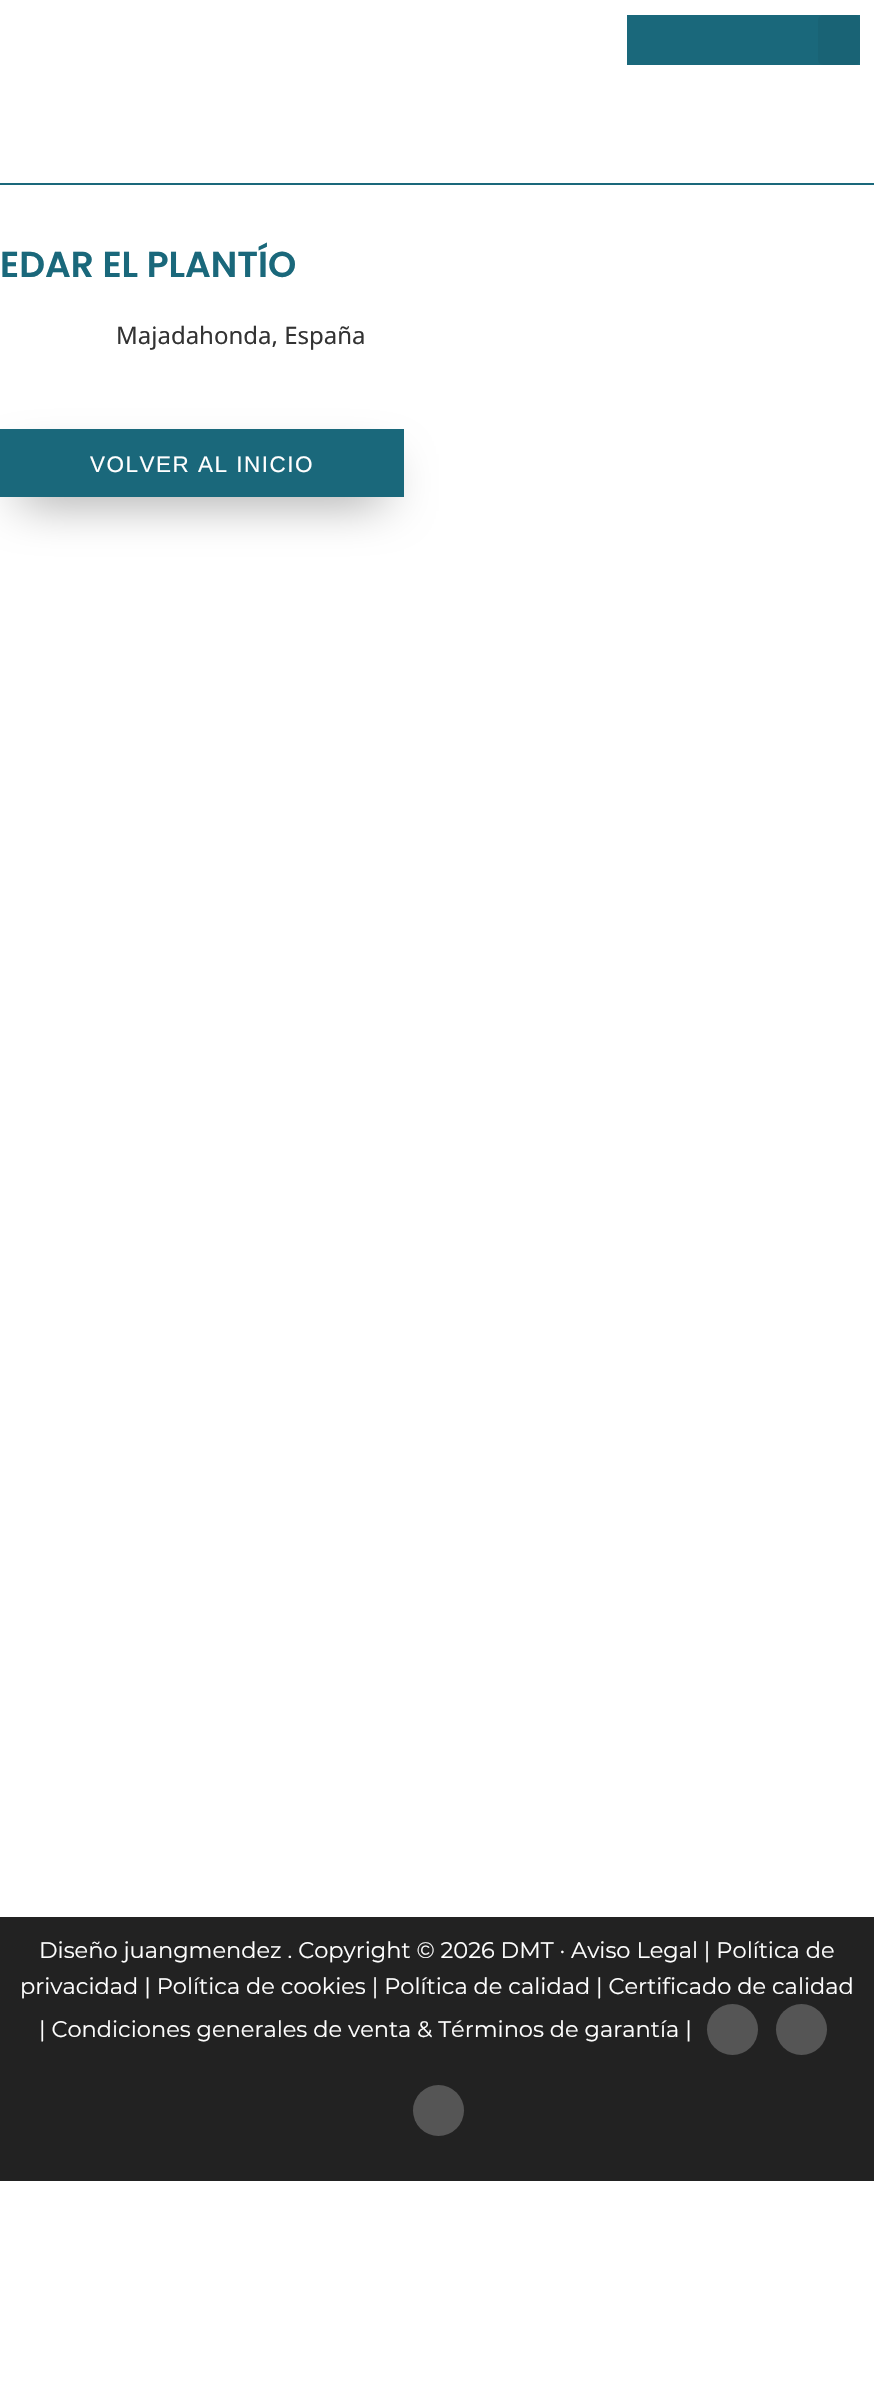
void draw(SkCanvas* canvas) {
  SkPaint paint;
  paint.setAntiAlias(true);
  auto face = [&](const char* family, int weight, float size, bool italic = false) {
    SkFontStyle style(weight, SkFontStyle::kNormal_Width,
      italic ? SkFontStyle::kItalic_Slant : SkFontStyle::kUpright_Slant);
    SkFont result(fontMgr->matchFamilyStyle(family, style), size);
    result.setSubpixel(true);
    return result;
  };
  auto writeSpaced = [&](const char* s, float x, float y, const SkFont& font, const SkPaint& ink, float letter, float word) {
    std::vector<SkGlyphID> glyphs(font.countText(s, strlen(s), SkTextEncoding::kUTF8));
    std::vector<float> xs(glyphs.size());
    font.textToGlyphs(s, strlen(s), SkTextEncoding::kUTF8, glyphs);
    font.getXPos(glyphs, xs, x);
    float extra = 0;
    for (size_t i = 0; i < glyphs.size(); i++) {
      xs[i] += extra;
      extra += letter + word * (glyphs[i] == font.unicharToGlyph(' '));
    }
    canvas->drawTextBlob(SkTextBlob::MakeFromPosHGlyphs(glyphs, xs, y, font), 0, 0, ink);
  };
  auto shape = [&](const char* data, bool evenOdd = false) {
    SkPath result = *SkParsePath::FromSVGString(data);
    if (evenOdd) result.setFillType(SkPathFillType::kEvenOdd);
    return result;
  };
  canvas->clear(0xffffffff);
  paint.setColor(0xff1a687b);
  canvas->drawPath(shape("M505 179C442 186 384 155 326 134C256 106 183 94 108 100C71 104 33 111-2 124V185H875V158C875 158 812 130 736 132C702 132 655 138 618 151C600 158 573 167 549 173C525 178 514 178 505 179Z"), paint);
  {
    const struct { float x, y, w, h; SkColor color; } items[] = {
      {0, 98, 612, 85, 0xffffffff},
      {612, 131, 262, 52, 0xffffffff},
      {627, 15, 233, 50, 0xff1a687b},
    };
    for (auto [x, y, w, h, color] : items) {
      paint.setColor(color);
      canvas->drawRect(SkRect::MakeXYWH(x, y, w, h), paint);
    }
  }
  paint.setColor(0xff196375);
  canvas->drawRoundRect(SkRect::MakeXYWH(818, 15, 42, 50), 5, 5, paint);
  paint.setColor(0x80000000);
  paint.setMaskFilter(SkMaskFilter::MakeBlur(kNormal_SkBlurStyle, 25));
  canvas->drawRect(SkRect::MakeXYWH(20, 468, 364, 29), paint);
  paint.setMaskFilter(nullptr);
  paint.setColor(0xff1a687b);
  canvas->drawRect(SkRect::MakeXYWH(0, 429, 404, 68), paint);
  paint.setColor(0xff222222);
  canvas->drawRect(SkRect::MakeXYWH(0, 1917, 874, 264), paint);
  paint.setColor(0xff555555);
  canvas->drawCircle(732.5f, 2029.5f, 25.5f, paint);
  canvas->drawCircle(801.5f, 2029.5f, 25.5f, paint);
  canvas->drawCircle(438.5f, 2110.5f, 25.5f, paint);
  auto f0 = face("Poppins", 600, 36);
  paint.setColor(0xff1a687b);
  canvas->drawString("EDAR EL PLANTÍO", 0, 277, f0, paint);
  auto f1 = face("Noto Sans", 400, 24);
  paint.setColor(0xff333333);
  canvas->drawString("Majadahonda, España", 116, 344, f1, paint);
  auto f2 = face("Liberation Sans", 400, 22.5f);
  paint.setColor(0xffffffff);
  writeSpaced("VOLVER AL INICIO", 90, 472, f2, paint, 1.5f, 0);
  auto f3 = face("Montserrat", 400, 22.5f);
  {
    const struct { const char* s; float x, y; } items[] = {
      {"Diseño juangmendez . Copyright © 2026 DMT · Aviso Legal | Política de", 39, 1958},
      {"privacidad | Política de cookies | Política de calidad | Certificado de calidad", 20, 1994},
      {"| Condiciones generales de venta & Términos de garantía |", 39, 2037},
    };
    for (auto [s, x, y] : items) {
      canvas->drawString(s, x, y, f3, paint);
    }
  }
}
